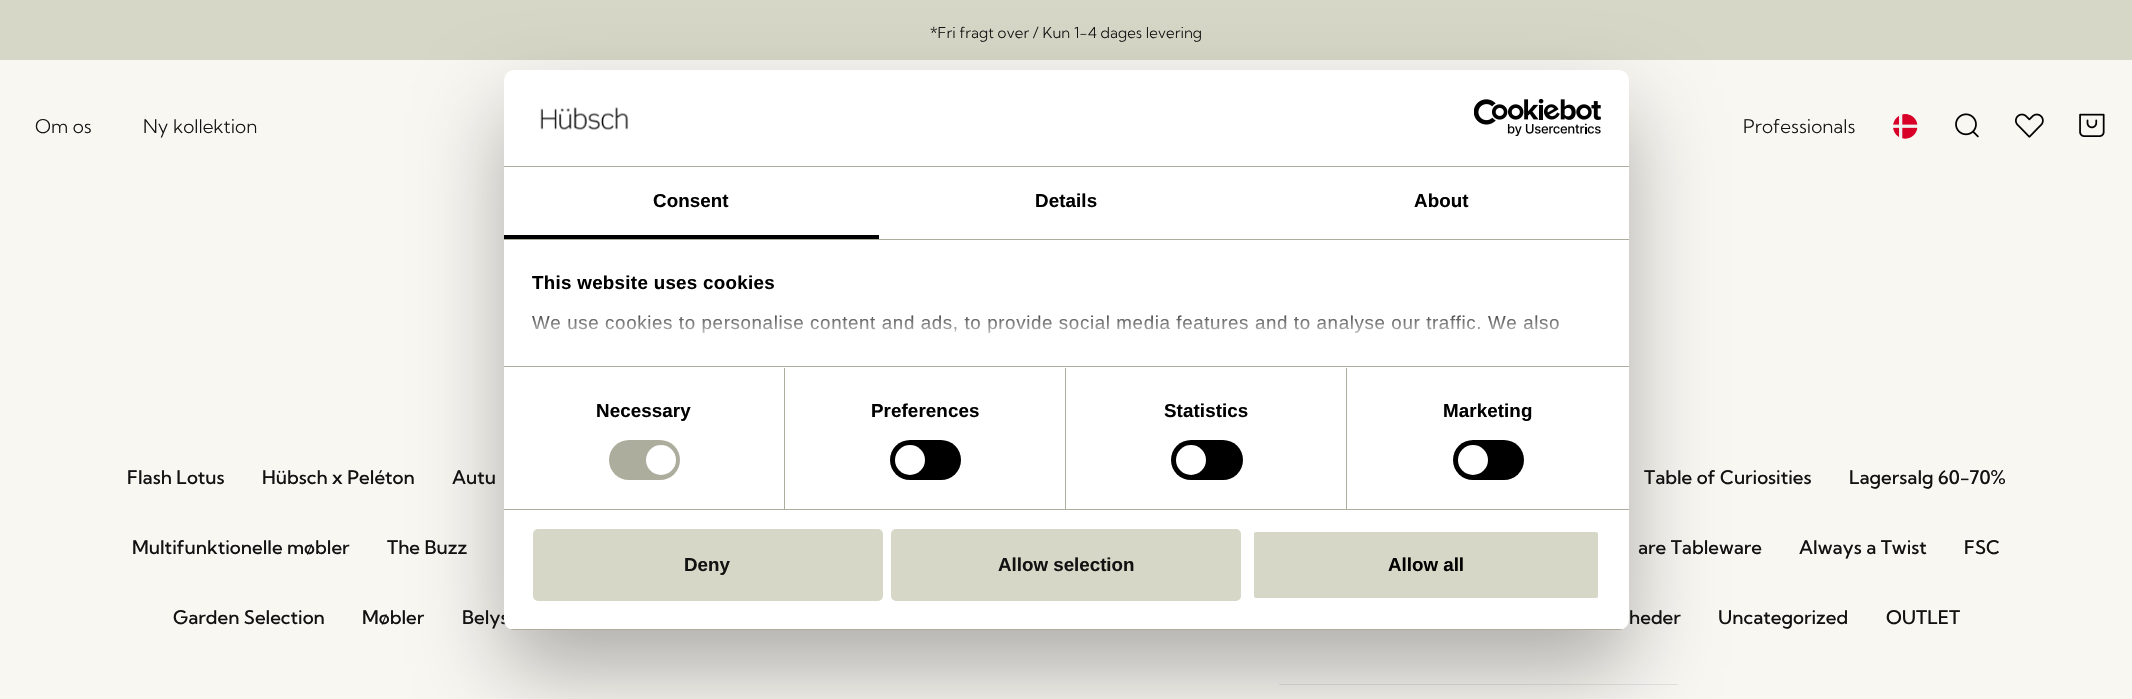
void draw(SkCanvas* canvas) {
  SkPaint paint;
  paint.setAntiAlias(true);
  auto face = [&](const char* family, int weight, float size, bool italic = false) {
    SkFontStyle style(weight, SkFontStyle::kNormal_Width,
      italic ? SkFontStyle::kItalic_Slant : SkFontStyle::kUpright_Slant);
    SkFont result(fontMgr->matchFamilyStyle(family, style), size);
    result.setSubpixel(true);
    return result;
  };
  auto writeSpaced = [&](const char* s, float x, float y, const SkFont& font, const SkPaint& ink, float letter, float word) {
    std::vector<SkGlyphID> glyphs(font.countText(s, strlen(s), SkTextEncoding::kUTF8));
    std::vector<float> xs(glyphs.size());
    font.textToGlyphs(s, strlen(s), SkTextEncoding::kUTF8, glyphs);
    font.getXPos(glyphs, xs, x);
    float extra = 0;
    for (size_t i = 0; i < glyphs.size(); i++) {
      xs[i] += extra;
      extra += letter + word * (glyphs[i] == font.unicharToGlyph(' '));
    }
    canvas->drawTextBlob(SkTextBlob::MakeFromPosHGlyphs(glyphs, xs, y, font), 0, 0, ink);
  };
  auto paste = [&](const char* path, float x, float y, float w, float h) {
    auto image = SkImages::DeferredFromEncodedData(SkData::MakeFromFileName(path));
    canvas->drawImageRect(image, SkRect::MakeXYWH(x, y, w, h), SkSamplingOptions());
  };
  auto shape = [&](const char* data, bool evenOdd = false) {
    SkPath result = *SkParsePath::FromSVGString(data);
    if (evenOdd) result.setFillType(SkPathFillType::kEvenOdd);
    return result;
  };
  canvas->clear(0xfff9f7f2);
  paint.setColor(0xffd7d7c7);
  canvas->drawRect(SkRect::MakeXYWH(0, 0, 2132, 60), paint);
  paste("img/1.png", 1893, 114, 25, 25);
  paste("img/2.png", 1955, 113, 24, 25);
  paste("img/3.png", 2015, 113, 29, 25);
  paste("img/4.png", 2079, 113, 26, 24);
  paint.setColor(0xffe2e2e2);
  canvas->drawRect(SkRect::MakeXYWH(1279, 684, 399, 1), paint);
  paint.setColor(0x4d000000);
  paint.setMaskFilter(SkMaskFilter::MakeBlur(kNormal_SkBlurStyle, 42.5f));
  canvas->drawRoundRect(SkRect::MakeXYWH(504, 110, 1125, 560), 10, 10, paint);
  paint.setMaskFilter(nullptr);
  auto f0 = face("Kumbh Sans", 300, 15);
  paint.setColor(0xff121212);
  canvas->drawString("*Fri fragt over / Kun 1-4 dages levering", 930, 38, f0, paint);
  auto f1 = face("Kumbh Sans", 300, 18.75f);
  {
    const struct { const char* s; float x, y; } items[] = {
      {"Om os", 35, 133},
      {"Ny kollektion", 143, 133},
      {"Professionals", 1743, 133},
    };
    for (auto [s, x, y] : items) {
      canvas->drawString(s, x, y, f1, paint);
    }
  }
  auto f2 = face("Kumbh Sans", 500, 18.75f);
  {
    const struct { const char* s; float x, y; } items[] = {
      {"Flash Lotus", 127, 484},
      {"Hübsch x Peléton", 262, 484},
      {"Autu", 452, 484},
      {"Table of Curiosities", 1644, 484},
      {"Lagersalg 60-70%", 1849, 484},
      {"Multifunktionelle møbler", 132, 554},
      {"The Buzz", 387, 554},
      {"are Tableware", 1638, 554},
      {"Always a Twist", 1799, 554},
      {"FSC", 1964, 554},
      {"Garden Selection", 173, 624},
      {"Møbler", 362, 624},
      {"Belys", 462, 624},
    };
    for (auto [s, x, y] : items) {
      canvas->drawString(s, x, y, f2, paint);
    }
  }
  paint.setColor(0xffffffff);
  canvas->drawRoundRect(SkRect::MakeXYWH(504, 70, 1125, 560), 10, 10, paint);
  auto f3 = face("Liberation Sans", 400, 18.75f);
  paint.setColor(0xff000000);
  writeSpaced("We use cookies to personalise content and ads, to provide social media features and to analyse our traffic. We also", 532, 329, f3, paint, 0.62f, 0);
  {
    const SkColor colors[] = {0xffffffff, 0xccffffff, 0x00ffffff};
    const float stops[] = {0, 0.5f, 1};
    const SkPoint ends[] = {{1054, 366}, {1054, 304}};
    paint.setShader(SkGradientShader::MakeLinear(ends, colors, stops, 3, SkTileMode::kClamp));
    paint.setAlpha(255);
  }
  canvas->drawRect(SkRect::MakeXYWH(532, 315, 1028, 18), paint);
  paint.setShader(nullptr);
  paint.setColor(0xffd7d7c7);
  canvas->drawRoundRect(SkRect::MakeXYWH(1252.5f, 530.5f, 347, 69), 3.5f, 3.5f, paint);
  paint.setStroke(true);
  paint.setStrokeWidth(3);
  paint.setColor(0xffffffff);
  canvas->drawRoundRect(SkRect::MakeXYWH(1252.5f, 530.5f, 347, 69), 3.5f, 3.5f, paint);
  auto f4 = face("Liberation Sans", 700, 18.75f);
  paint.setStroke(false);
  paint.setColor(0xff000000);
  canvas->drawString("Allow all", 1388, 571, f4, paint);
  paint.setColor(0xffd7d7c7);
  canvas->drawRoundRect(SkRect::MakeXYWH(892.5f, 530.5f, 347, 69), 3.5f, 3.5f, paint);
  paint.setStroke(true);
  canvas->drawRoundRect(SkRect::MakeXYWH(892.5f, 530.5f, 347, 69), 3.5f, 3.5f, paint);
  paint.setStroke(false);
  paint.setColor(0xff121212);
  canvas->drawString("Allow selection", 998, 571, f4, paint);
  paint.setColor(0xffd7d7c7);
  canvas->drawRoundRect(SkRect::MakeXYWH(534.5f, 530.5f, 347, 69), 3.5f, 3.5f, paint);
  paint.setStroke(true);
  canvas->drawRoundRect(SkRect::MakeXYWH(534.5f, 530.5f, 347, 69), 3.5f, 3.5f, paint);
  paint.setStroke(false);
  paint.setColor(0xff121212);
  canvas->drawString("Deny", 684, 571, f4, paint);
  canvas->save();
  canvas->clipPath(shape("M514 70H1619C1624.5 70 1629 74.5 1629 80V620C1629 625.5 1624.5 630 1619 630H514C508.5 630 504 625.5 504 620V80C504 74.5 508.5 70 514 70Z"), true);
  paint.setColor(0xffadad9e);
  canvas->drawRect(SkRect::MakeXYWH(504, 629, 1125, 1), paint);
  canvas->restore();
  paint.setColor(0xff000000);
  canvas->drawRoundRect(SkRect::MakeXYWH(1453, 440, 71, 40), 20, 20, paint);
  paint.setColor(0xffffffff);
  canvas->drawCircle(1473, 460, 15, paint);
  paint.setColor(0xff000000);
  canvas->drawRoundRect(SkRect::MakeXYWH(1171, 440, 72, 40), 20, 20, paint);
  paint.setColor(0xffffffff);
  canvas->drawCircle(1191, 460, 15, paint);
  paint.setColor(0xff000000);
  canvas->drawRoundRect(SkRect::MakeXYWH(890, 440, 71, 40), 20, 20, paint);
  paint.setColor(0xffffffff);
  canvas->drawCircle(910, 460, 15, paint);
  paint.setColor(0xffadad9e);
  canvas->drawRoundRect(SkRect::MakeXYWH(609, 440, 71, 40), 20, 20, paint);
  paint.setColor(0xffffffff);
  canvas->drawCircle(661, 460, 15, paint);
  paint.setColor(0xff000000);
  writeSpaced("This website uses cookies", 532, 289, f4, paint, 0.3f, 0);
  paint.setColor(0xffadad9e);
  canvas->drawRect(SkRect::MakeXYWH(504, 366, 1125, 1), paint);
  paint.setColor(0xff000000);
  {
    const struct { const char* s; float x, y; } items[] = {
      {"About", 1414, 207},
      {"Details", 1035, 207},
      {"Consent", 653, 207},
    };
    for (auto [s, x, y] : items) {
      writeSpaced(s, x, y, f4, paint, 0.1f, 0);
    }
  }
  canvas->drawRect(SkRect::MakeXYWH(504, 235, 375, 4), paint);
  paint.setColor(0xffadad9e);
  canvas->drawRect(SkRect::MakeXYWH(504, 239, 1125, 1), paint);
  paint.setColor(0xff000000);
  writeSpaced("Marketing", 1443, 417, f4, paint, 0.1f, 0);
  writeSpaced("Statistics", 1164, 417, f4, paint, 0.1f, 0);
  paint.setColor(0xffadad9e);
  canvas->drawRect(SkRect::MakeXYWH(1346, 368, 1, 141), paint);
  paint.setColor(0xff000000);
  writeSpaced("Preferences", 871, 417, f4, paint, 0.1f, 0);
  paint.setColor(0xffadad9e);
  canvas->drawRect(SkRect::MakeXYWH(1065, 368, 1, 141), paint);
  paint.setColor(0xff000000);
  writeSpaced("Necessary", 596, 417, f4, paint, 0.1f, 0);
  paint.setColor(0xffadad9e);
  canvas->drawRect(SkRect::MakeXYWH(784, 368, 1, 141), paint);
  canvas->drawRect(SkRect::MakeXYWH(504, 509, 1125, 1), paint);
  paste("img/6.png", 1474, 99, 127, 37);
  paste("img/5.png", 540, 107, 89, 23);
  canvas->drawRect(SkRect::MakeXYWH(504, 166, 1125, 1), paint);
  paint.setColor(0xff121212);
  {
    const struct { const char* s; float x, y; } items[] = {
      {"heder", 1629, 624},
      {"Uncategorized", 1718, 624},
      {"OUTLET", 1886, 624},
    };
    for (auto [s, x, y] : items) {
      canvas->drawString(s, x, y, f2, paint);
    }
  }
}
